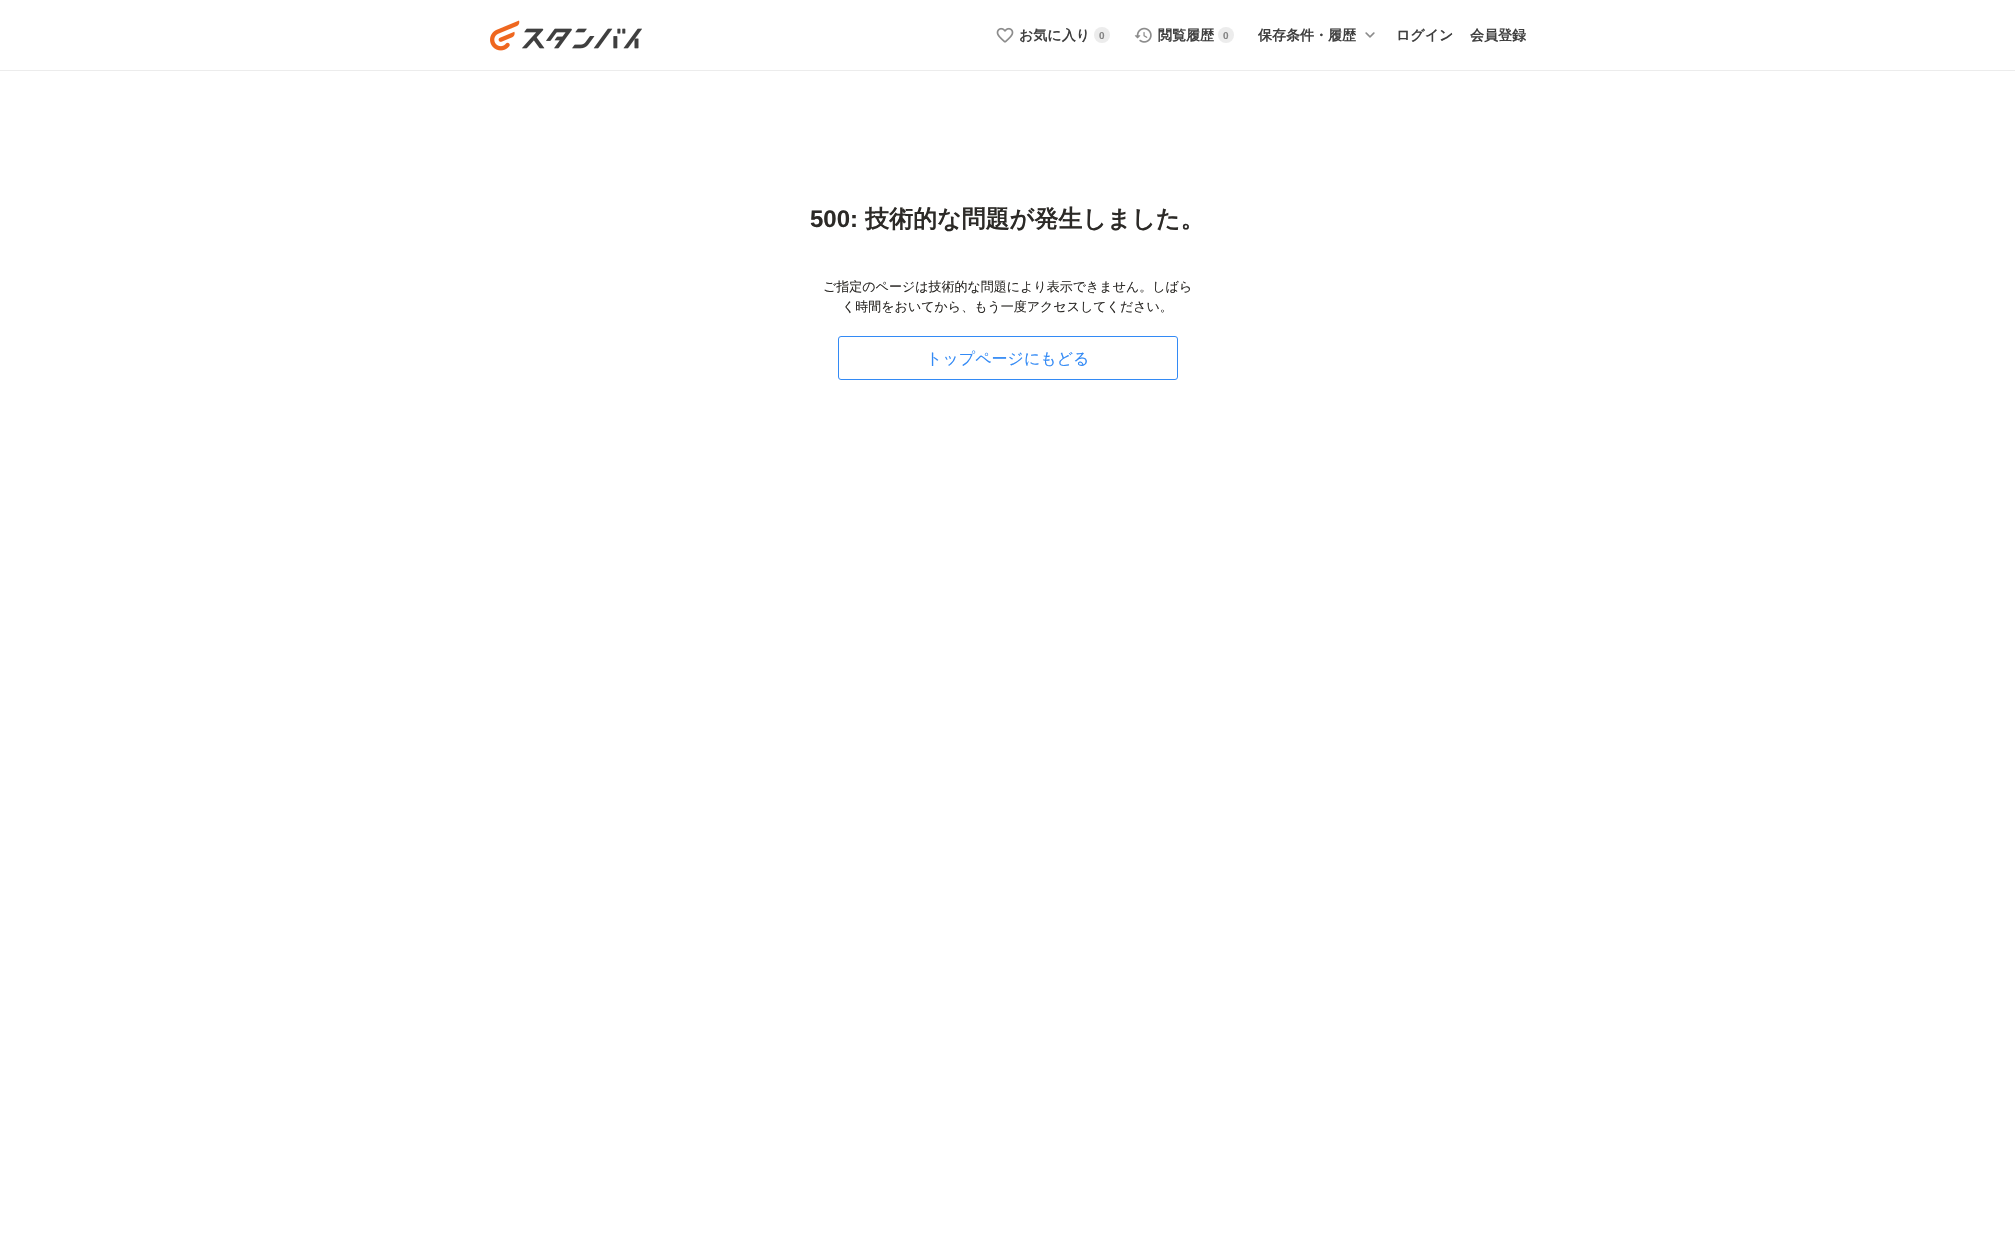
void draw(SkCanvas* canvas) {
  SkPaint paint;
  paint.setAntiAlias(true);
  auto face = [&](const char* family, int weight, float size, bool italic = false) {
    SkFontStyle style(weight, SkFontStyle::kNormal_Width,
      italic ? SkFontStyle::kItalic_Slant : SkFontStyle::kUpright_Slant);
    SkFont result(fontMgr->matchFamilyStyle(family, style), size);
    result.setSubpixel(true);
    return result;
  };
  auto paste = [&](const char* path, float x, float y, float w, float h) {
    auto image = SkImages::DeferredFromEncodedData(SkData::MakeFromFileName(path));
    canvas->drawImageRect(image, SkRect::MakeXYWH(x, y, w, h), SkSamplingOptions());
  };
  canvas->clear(0xffffffff);
  paint.setColor(0xffececec);
  canvas->drawRect(SkRect::MakeXYWH(0, 70, 2015, 1), paint);
  paste("img/1.png", 490, 20, 152, 31);
  paste("img/2.png", 996, 27, 18, 16);
  canvas->drawCircle(1102, 35, 8, paint);
  paste("img/3.png", 1134, 27, 18, 16);
  canvas->drawCircle(1226, 35, 8, paint);
  paste("img/4.png", 1365, 32, 10, 6);
  paint.setStroke(true);
  paint.setStrokeWidth(1);
  paint.setColor(0xff338af5);
  canvas->drawRoundRect(SkRect::MakeXYWH(838.5f, 336.5f, 339, 43), 2.5f, 2.5f, paint);
  auto f0 = face("WenQuanYi Zen Hei", 700, 14);
  paint.setStroke(false);
  paint.setColor(0xff3f3f3f);
  canvas->drawString("お気に入り", 1019, 40, f0, paint);
  auto f1 = face("Liberation Sans", 700, 10);
  paint.setColor(0xff848484);
  canvas->drawString("0", 1099, 39, f1, paint);
  paint.setColor(0xff3f3f3f);
  canvas->drawString("閲覧履歴", 1158, 40, f0, paint);
  paint.setColor(0xff848484);
  canvas->drawString("0", 1223, 39, f1, paint);
  paint.setColor(0xff3f3f3f);
  {
    const struct { const char* s; float x, y; } items[] = {
      {"保存条件・履歴", 1258, 40},
      {"ログイン", 1396, 40},
      {"会員登録", 1470, 40},
    };
    for (auto [s, x, y] : items) {
      canvas->drawString(s, x, y, f0, paint);
    }
  }
  auto f2 = face("Liberation Sans", 700, 24);
  paint.setColor(0xff2c2a27);
  canvas->drawString("500:", 810, 227, f2, paint);
  auto f3 = face("WenQuanYi Zen Hei", 700, 24);
  canvas->drawString("技術的な問題が発生しました。", 865, 227, f3, paint);
  auto f4 = face("WenQuanYi Zen Hei", 500, 13);
  canvas->drawString("ご指定のページは技術的な問題により表示できません。しばら", 823, 291, f4, paint);
  canvas->drawString("く時間をおいてから、もう一度アクセスしてください。", 842, 311, f4, paint);
  auto f5 = face("WenQuanYi Zen Hei", 500, 16);
  paint.setColor(0xff338af5);
  canvas->drawString("トップページにもどる", 926, 364, f5, paint);
}
